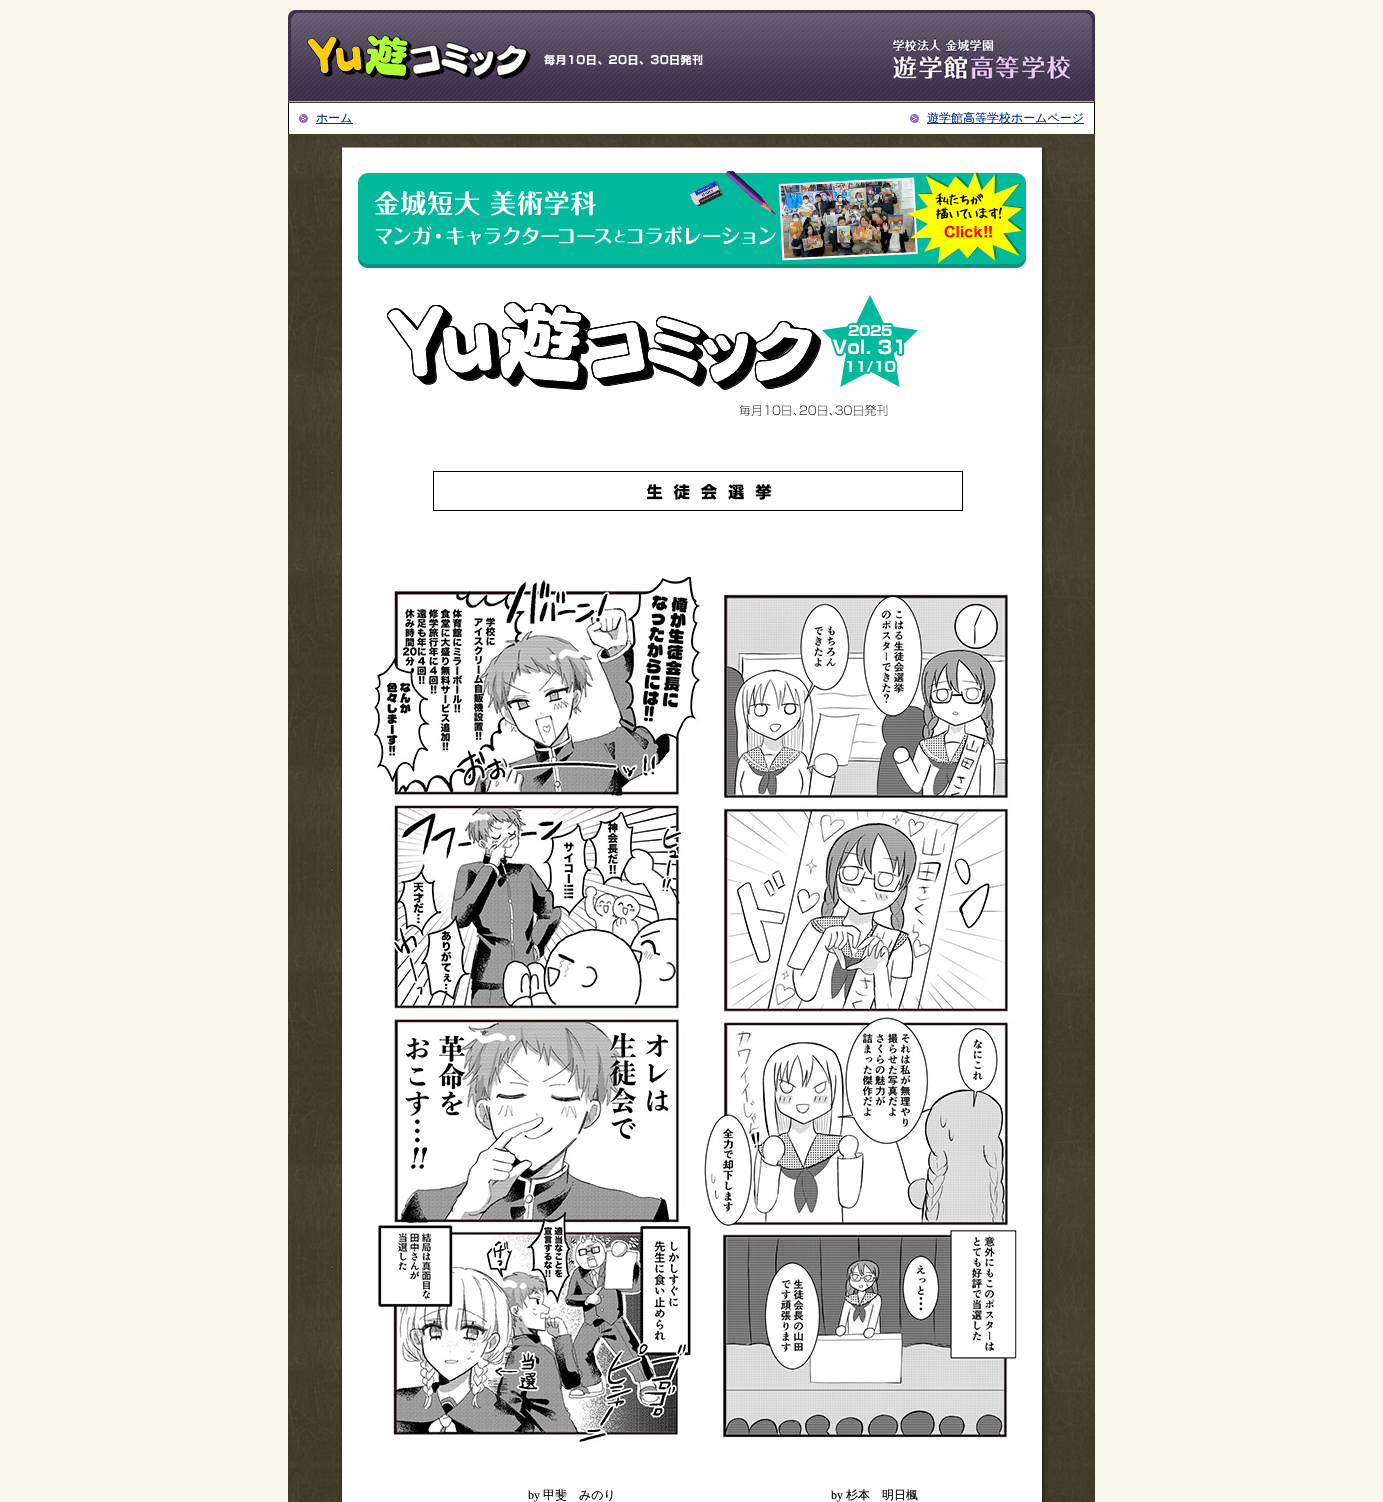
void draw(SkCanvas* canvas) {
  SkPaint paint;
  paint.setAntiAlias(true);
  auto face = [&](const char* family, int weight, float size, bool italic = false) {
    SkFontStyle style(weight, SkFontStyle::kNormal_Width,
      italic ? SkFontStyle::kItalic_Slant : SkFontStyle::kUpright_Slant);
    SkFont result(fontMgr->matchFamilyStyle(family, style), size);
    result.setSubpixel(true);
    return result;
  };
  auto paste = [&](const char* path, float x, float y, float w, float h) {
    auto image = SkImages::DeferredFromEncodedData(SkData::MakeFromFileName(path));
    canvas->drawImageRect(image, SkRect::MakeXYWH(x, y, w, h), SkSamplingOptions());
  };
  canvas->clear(0xfff8f6e9);
  paint.setColor(0xffffffff);
  canvas->drawRect(SkRect::MakeXYWH(289, 103, 805, 31), paint);
  paste("img/1.png", 288, 10, 807, 93);
  paint.setColor(0xff000000);
  canvas->drawRect(SkRect::MakeXYWH(1094, 103, 1, 31), paint);
  canvas->drawRect(SkRect::MakeXYWH(288, 103, 1, 31), paint);
  paste("img/2.png", 299, 114, 9, 9);
  paint.setColor(0xff00338f);
  canvas->drawRect(SkRect::MakeXYWH(316, 123, 37, 1), paint);
  paste("img/2.png", 910, 114, 9, 9);
  canvas->drawRect(SkRect::MakeXYWH(927, 123, 157, 1), paint);
  paste("img/3.png", 288, 134, 807, 1368);
  paste("img/4.png", 288, 134, 805, 17);
  paste("img/5.png", 358, 171, 668, 104);
  paste("img/6.png", 387, 295, 531, 121);
  paste("img/7.png", 433, 471, 530, 40);
  paste("img/8.png", 374, 576, 637, 428);
  paste("img/9.png", 375, 1004, 645, 439);
  auto f0 = face("WenQuanYi Zen Hei", 500, 12);
  canvas->drawString("ホーム", 316, 122, f0, paint);
  canvas->drawString("遊学館高等学校ホームページ", 927, 122, f0, paint);
  auto f1 = face("Liberation Serif", 400, 12);
  paint.setColor(0xff000000);
  canvas->drawString("by", 528, 1499, f1, paint);
  canvas->drawString("甲斐　みのり", 543, 1499, f0, paint);
  canvas->drawString("by", 831, 1499, f1, paint);
  canvas->drawString("杉本　明日楓", 846, 1499, f0, paint);
}
